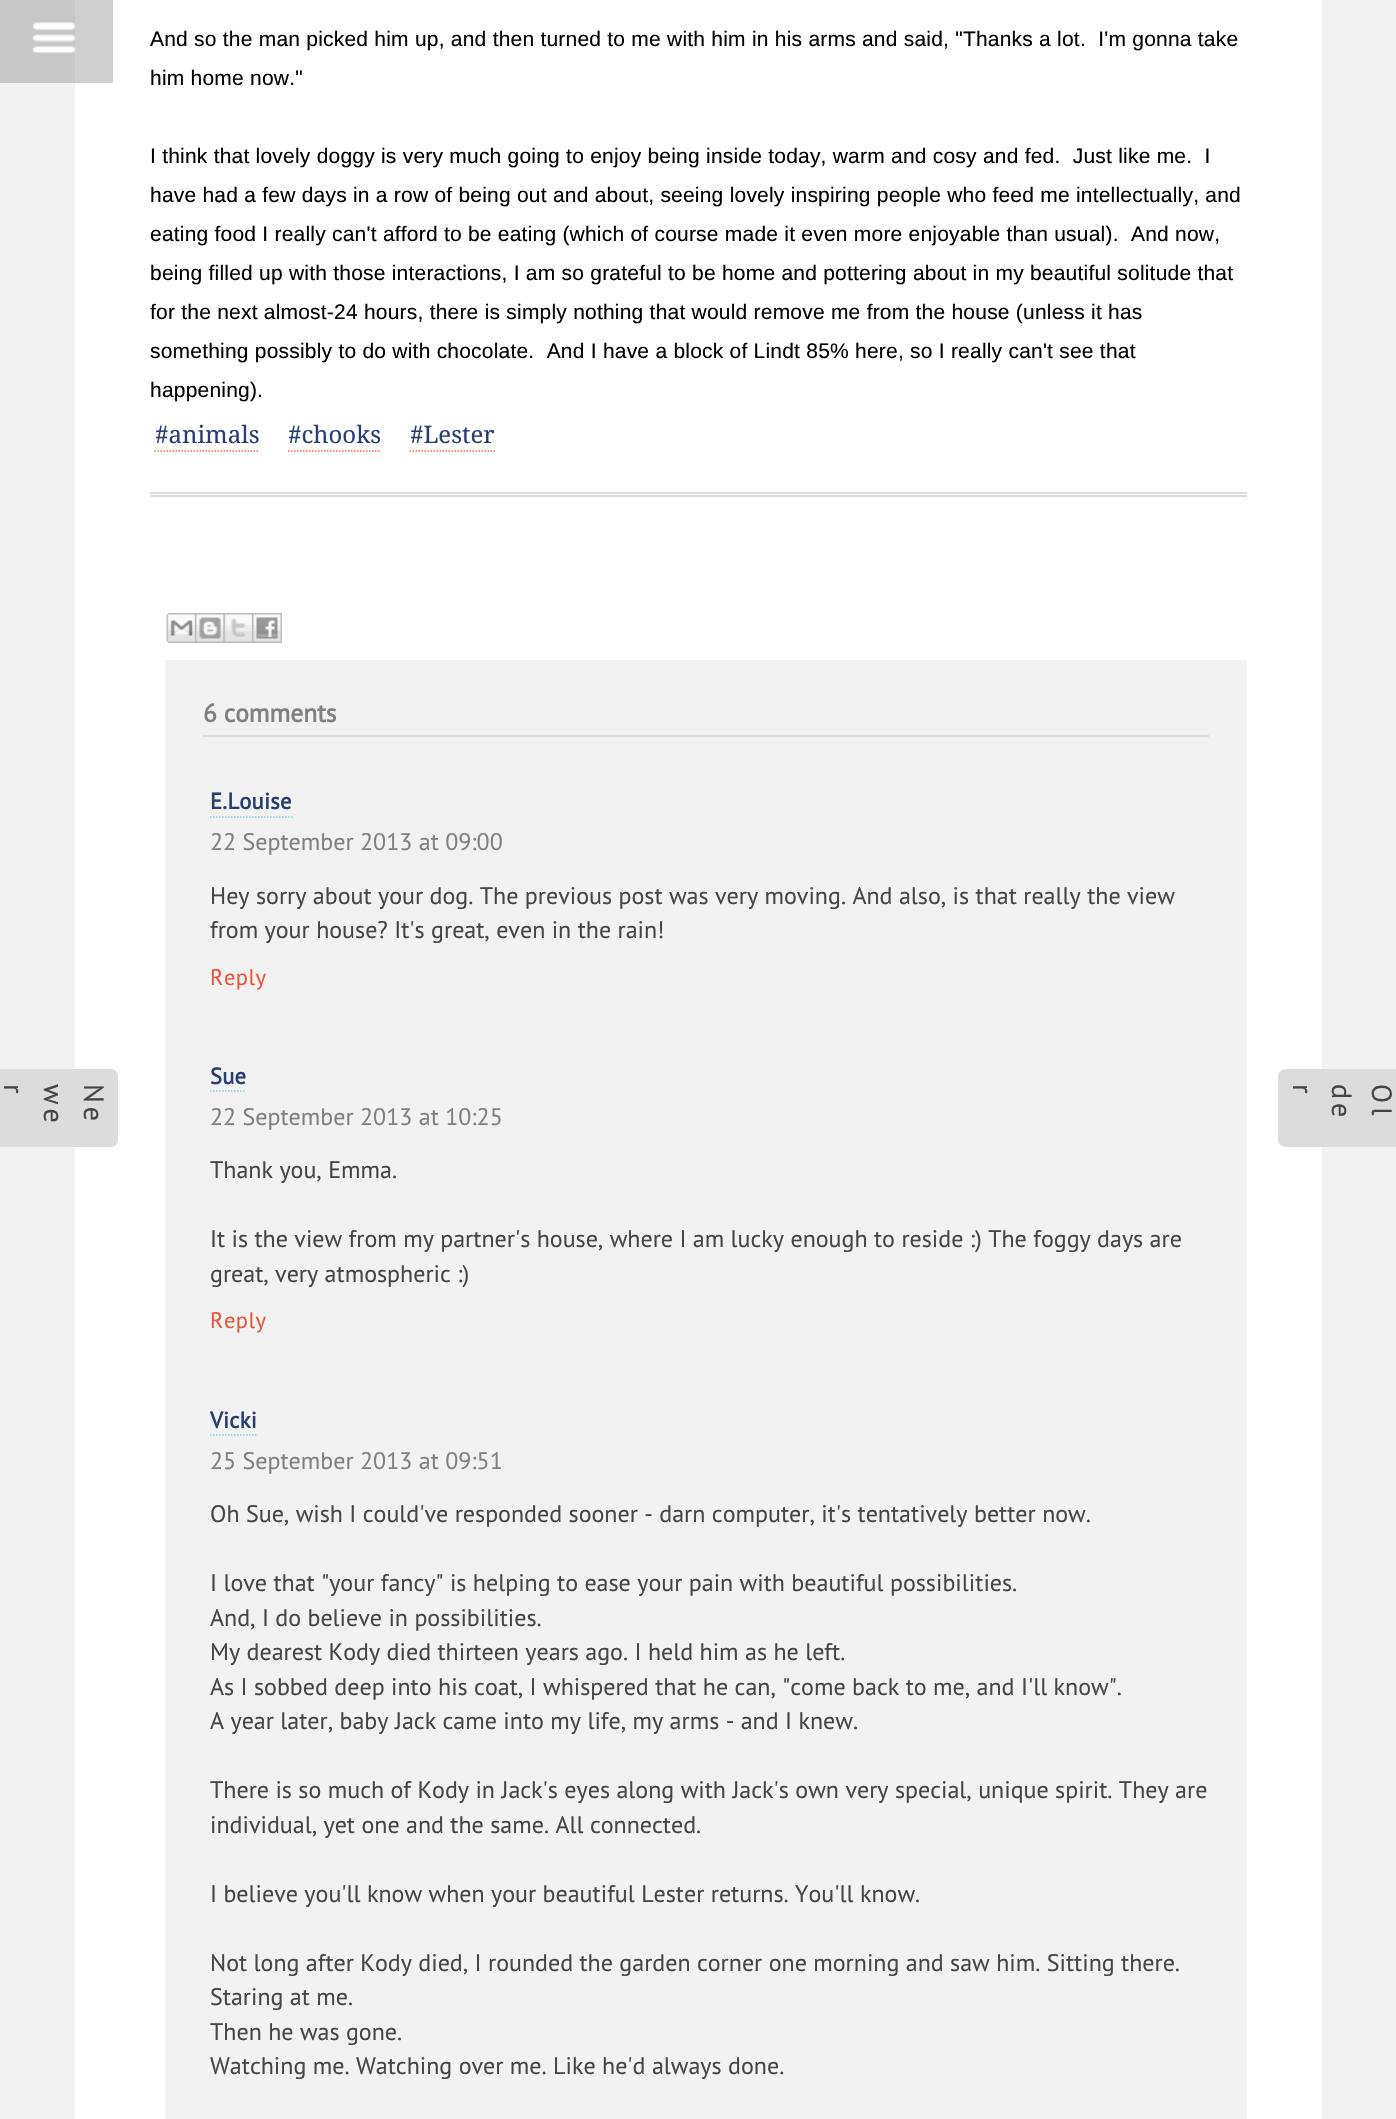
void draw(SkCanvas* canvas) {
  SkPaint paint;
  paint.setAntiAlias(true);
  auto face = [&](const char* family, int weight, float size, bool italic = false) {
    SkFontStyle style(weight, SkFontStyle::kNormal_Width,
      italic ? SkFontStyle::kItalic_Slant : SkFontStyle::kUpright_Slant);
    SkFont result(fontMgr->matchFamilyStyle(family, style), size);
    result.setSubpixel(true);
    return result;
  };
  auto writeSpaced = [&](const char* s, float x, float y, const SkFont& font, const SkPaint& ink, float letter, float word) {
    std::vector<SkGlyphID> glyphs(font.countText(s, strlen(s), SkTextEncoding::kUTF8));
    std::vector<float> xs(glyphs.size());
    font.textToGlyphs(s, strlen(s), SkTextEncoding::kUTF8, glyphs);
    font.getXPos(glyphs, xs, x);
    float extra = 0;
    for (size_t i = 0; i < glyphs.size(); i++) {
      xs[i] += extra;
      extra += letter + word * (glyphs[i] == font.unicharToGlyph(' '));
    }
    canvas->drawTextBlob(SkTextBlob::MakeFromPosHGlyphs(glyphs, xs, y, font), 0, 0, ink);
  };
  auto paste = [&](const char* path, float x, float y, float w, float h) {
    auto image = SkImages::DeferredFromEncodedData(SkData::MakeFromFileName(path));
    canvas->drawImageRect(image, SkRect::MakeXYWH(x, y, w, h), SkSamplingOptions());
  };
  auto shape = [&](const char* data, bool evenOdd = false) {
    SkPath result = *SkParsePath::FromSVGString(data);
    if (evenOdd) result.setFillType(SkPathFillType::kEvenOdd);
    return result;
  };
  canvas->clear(0xfff2f2f2);
  {
    const struct { float x, y, w, h; SkColor color; } items[] = {
      {0, 0, 75, 83, 0xffc7c7c7},
      {75, 0, 1247, 2119, 0xffffffff},
      {75, 0, 38, 83, 0xffcfcfcf},
    };
    for (auto [x, y, w, h, color] : items) {
      paint.setColor(color);
      canvas->drawRect(SkRect::MakeXYWH(x, y, w, h), paint);
    }
  }
  paste("img/1.png", 32, 22, 44, 31);
  paint.setColor(0xffdcdcdc);
  canvas->drawRect(SkRect::MakeXYWH(150, 492, 1097, 2), paint);
  canvas->drawRect(SkRect::MakeXYWH(150, 495, 1097, 2), paint);
  paint.setStroke(true);
  paint.setStrokeWidth(1.5f);
  paint.setColor(0xffff6347);
  paint.setPathEffect(SkDashPathEffect::Make({{1.5f, 1.5f}}, 0));
  canvas->drawPath(shape("M154.5 451H259.5"), paint);
  paint.setPathEffect(nullptr);
  paint.setPathEffect(SkDashPathEffect::Make({{1.5f, 1.5f}}, 0));
  canvas->drawPath(shape("M288 451H381"), paint);
  paint.setPathEffect(nullptr);
  paint.setPathEffect(SkDashPathEffect::Make({{1.5f, 1.5f}}, 0));
  canvas->drawPath(shape("M409.5 451H495"), paint);
  paint.setPathEffect(nullptr);
  paste("img/2.png", 166, 613, 29, 30);
  paste("img/3.png", 195, 613, 29, 30);
  paste("img/4.png", 223, 613, 29, 30);
  paste("img/5.png", 252, 613, 30, 30);
  paint.setStroke(false);
  paint.setColor(0xfff2f2f2);
  canvas->drawRect(SkRect::MakeXYWH(165, 660, 1082, 1459), paint);
  paint.setColor(0xffdcdcdc);
  canvas->drawRect(SkRect::MakeXYWH(203, 735, 1006, 2), paint);
  paint.setStroke(true);
  paint.setColor(0xff87ceeb);
  paint.setPathEffect(SkDashPathEffect::Make({{1.5f, 1.5f}}, 0));
  canvas->drawPath(shape("M210 817H292.5"), paint);
  paint.setPathEffect(nullptr);
  paint.setPathEffect(SkDashPathEffect::Make({{1.5f, 1.5f}}, 0));
  canvas->drawPath(shape("M210 1091H246"), paint);
  paint.setPathEffect(nullptr);
  paint.setPathEffect(SkDashPathEffect::Make({{1.5f, 1.5f}}, 0));
  canvas->drawPath(shape("M210 1435H258"), paint);
  paint.setPathEffect(nullptr);
  paint.setStroke(false);
  paint.setColor(0xffdcdcdc);
  canvas->drawPath(shape("M118 1077V1140C118 1144 115 1147 111 1147H-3C-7 1147-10 1144-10 1140V1077C-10 1072-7 1069-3 1069H111C115 1069 118 1072 118 1077Z"), paint);
  canvas->drawPath(shape("M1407 1077V1140C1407 1144 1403 1147 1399 1147H1286C1282 1147 1278 1144 1278 1140V1077C1278 1072 1282 1069 1286 1069H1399C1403 1069 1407 1072 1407 1077Z"), paint);
  auto f0 = face("Liberation Sans", 400, 21);
  paint.setColor(0xff000000);
  {
    const struct { const char* s; float x, y; } items[] = {
      {"And so the man picked him up, and then turned to me with him in his arms and said, \"Thanks a lot.  I'm gonna take", 150, 46},
      {"him home now.\"", 150, 85},
      {"I think that lovely doggy is very much going to enjoy being inside today, warm and cosy and fed.  Just like me.  I", 150, 163},
      {"have had a few days in a row of being out and about, seeing lovely inspiring people who feed me intellectually, and", 150, 202},
      {"eating food I really can't afford to be eating (which of course made it even more enjoyable than usual).  And now,", 150, 241},
      {"being filled up with those interactions, I am so grateful to be home and pottering about in my beautiful solitude that", 150, 280},
      {"for the next almost-24 hours, there is simply nothing that would remove me from the house (unless it has", 150, 319},
      {"something possibly to do with chocolate.  And I have a block of Lindt 85% here, so I really can't see that", 150, 358},
    };
    for (auto [s, x, y] : items) {
      writeSpaced(s, x, y, f0, paint, 0.2f, 0.1f);
    }
  }
  writeSpaced("happening).", 150, 397, f0, paint, 0.2f, 0);
  auto f1 = face("Droid Serif", 400, 24);
  paint.setColor(0xff283e72);
  {
    const struct { const char* s; float x, y; } items[] = {
      {"#animals", 155, 443},
      {"#chooks", 288, 443},
      {"#Lester", 410, 443},
    };
    for (auto [s, x, y] : items) {
      canvas->drawString(s, x, y, f1, paint);
    }
  }
  auto f2 = face("PT Sans", 700, 25.5f);
  paint.setColor(0xff808080);
  canvas->drawString("6 comments", 203, 722, f2, paint);
  auto f3 = face("PT Sans", 700, 22.5f);
  paint.setColor(0xff283e72);
  writeSpaced("E.Louise", 210, 809, f3, paint, 0.25f, 0);
  auto f4 = face("PT Sans", 400, 24);
  paint.setColor(0xff808080);
  canvas->drawString("22 September 2013 at 09:00", 210, 850, f4, paint);
  paint.setColor(0xff454545);
  canvas->drawString("Hey sorry about your dog. The previous post was very moving. And also, is that really the view", 210, 904, f4, paint);
  canvas->drawString("from your house? It's great, even in the rain!", 210, 938, f4, paint);
  auto f5 = face("PT Sans", 400, 22.5f);
  paint.setColor(0xffe8563c);
  writeSpaced("Reply", 210, 985, f5, paint, 0.5f, 0);
  paint.setColor(0xff283e72);
  writeSpaced("Sue", 210, 1084, f3, paint, 0.25f, 0);
  paint.setColor(0xff808080);
  canvas->drawString("22 September 2013 at 10:25", 210, 1125, f4, paint);
  paint.setColor(0xff454545);
  {
    const struct { const char* s; float x, y; } items[] = {
      {"Thank you, Emma.", 210, 1178},
      {"It is the view from my partner's house, where I am lucky enough to reside :) The foggy days are", 210, 1247},
      {"great, very atmospheric :)", 210, 1282},
    };
    for (auto [s, x, y] : items) {
      canvas->drawString(s, x, y, f4, paint);
    }
  }
  paint.setColor(0xffe8563c);
  writeSpaced("Reply", 210, 1328, f5, paint, 0.5f, 0);
  paint.setColor(0xff283e72);
  writeSpaced("Vicki", 210, 1428, f3, paint, 0.25f, 0);
  paint.setColor(0xff808080);
  canvas->drawString("25 September 2013 at 09:51", 210, 1469, f4, paint);
  paint.setColor(0xff454545);
  {
    const struct { const char* s; float x, y; } items[] = {
      {"Oh Sue, wish I could've responded sooner - darn computer, it's tentatively better now.", 210, 1522},
      {"I love that \"your fancy\" is helping to ease your pain with beautiful possibilities.", 210, 1591},
      {"And, I do believe in possibilities.", 210, 1626},
      {"My dearest Kody died thirteen years ago. I held him as he left.", 210, 1660},
      {"As I sobbed deep into his coat, I whispered that he can, \"come back to me, and I'll know\".", 210, 1695},
      {"A year later, baby Jack came into my life, my arms - and I knew.", 210, 1729},
      {"There is so much of Kody in Jack's eyes along with Jack's own very special, unique spirit. They are", 210, 1798},
      {"individual, yet one and the same. All connected.", 210, 1833},
      {"I believe you'll know when your beautiful Lester returns. You'll know.", 210, 1902},
      {"Not long after Kody died, I rounded the garden corner one morning and saw him. Sitting there.", 210, 1971},
      {"Staring at me.", 210, 2005},
      {"Then he was gone.", 210, 2040},
      {"Watching me. Watching over me. Like he'd always done.", 210, 2074},
    };
    for (auto [s, x, y] : items) {
      canvas->drawString(s, x, y, f4, paint);
    }
  }
  auto f6 = face("PT Sans", 400, 28);
  canvas->save();
  canvas->rotate(90, 4, 1084);
  writeSpaced("r", 4, 1084, f6, paint, 4, 0);
  canvas->restore();
  canvas->save();
  canvas->rotate(90, 44, 1084);
  writeSpaced("we", 44, 1084, f6, paint, 4, 0);
  canvas->restore();
  canvas->save();
  canvas->rotate(90, 84, 1084);
  writeSpaced("Ne", 84, 1084, f6, paint, 4, 0);
  canvas->restore();
  canvas->save();
  canvas->rotate(90, 1293, 1084);
  writeSpaced("r", 1293, 1084, f6, paint, 4, 0);
  canvas->restore();
  canvas->save();
  canvas->rotate(90, 1332, 1084);
  writeSpaced("de", 1332, 1084, f6, paint, 4, 0);
  canvas->restore();
  canvas->save();
  canvas->rotate(90, 1372, 1084);
  writeSpaced("Ol", 1372, 1084, f6, paint, 4, 0);
  canvas->restore();
}
